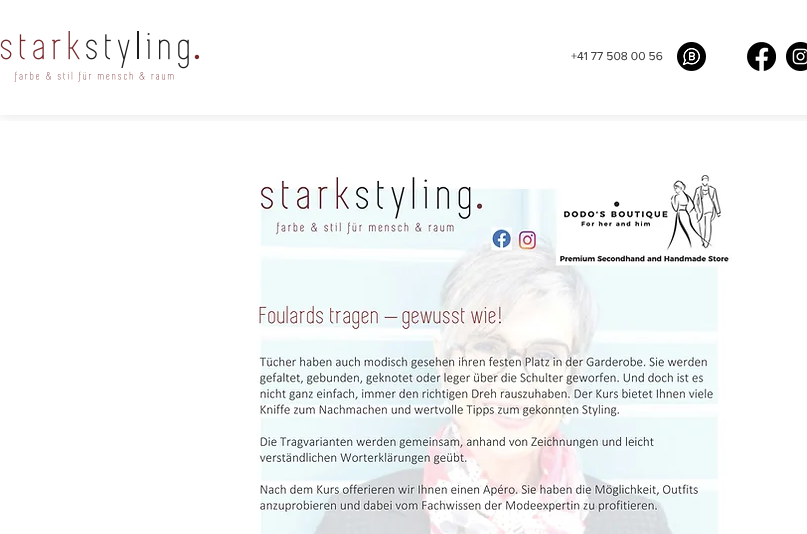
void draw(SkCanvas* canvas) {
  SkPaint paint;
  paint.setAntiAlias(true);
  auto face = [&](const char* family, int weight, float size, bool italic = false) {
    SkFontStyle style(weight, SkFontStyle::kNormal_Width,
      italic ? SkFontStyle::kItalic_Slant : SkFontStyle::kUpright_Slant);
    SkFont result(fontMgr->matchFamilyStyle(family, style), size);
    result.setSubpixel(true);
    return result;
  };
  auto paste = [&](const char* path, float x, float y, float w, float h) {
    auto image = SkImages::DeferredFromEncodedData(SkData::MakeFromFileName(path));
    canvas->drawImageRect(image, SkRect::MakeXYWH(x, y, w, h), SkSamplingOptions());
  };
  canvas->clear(0xffffffff);
  canvas->save();
  canvas->clipRect(SkRect::MakeXYWH(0, 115, 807, 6));
  paint.setColor(0x1c000000);
  paint.setMaskFilter(SkMaskFilter::MakeBlur(kNormal_SkBlurStyle, 7));
  canvas->drawRect(SkRect::MakeXYWH(0, 0, 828, 115), paint);
  paint.setMaskFilter(nullptr);
  canvas->restore();
  paste("img/1.png", 0, 31, 200, 51);
  paste("img/2.png", 677, 42, 29, 29);
  paste("img/3.png", 747, 42, 29, 29);
  paste("img/4.png", 786, 42, 21, 29);
  paste("img/5.png", 257, 173, 475, 361);
  auto f0 = face("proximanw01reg", 400, 12);
  paint.setColor(0xff414141);
  canvas->drawString("+41 77 508 00 56", 571, 60, f0, paint);
}
